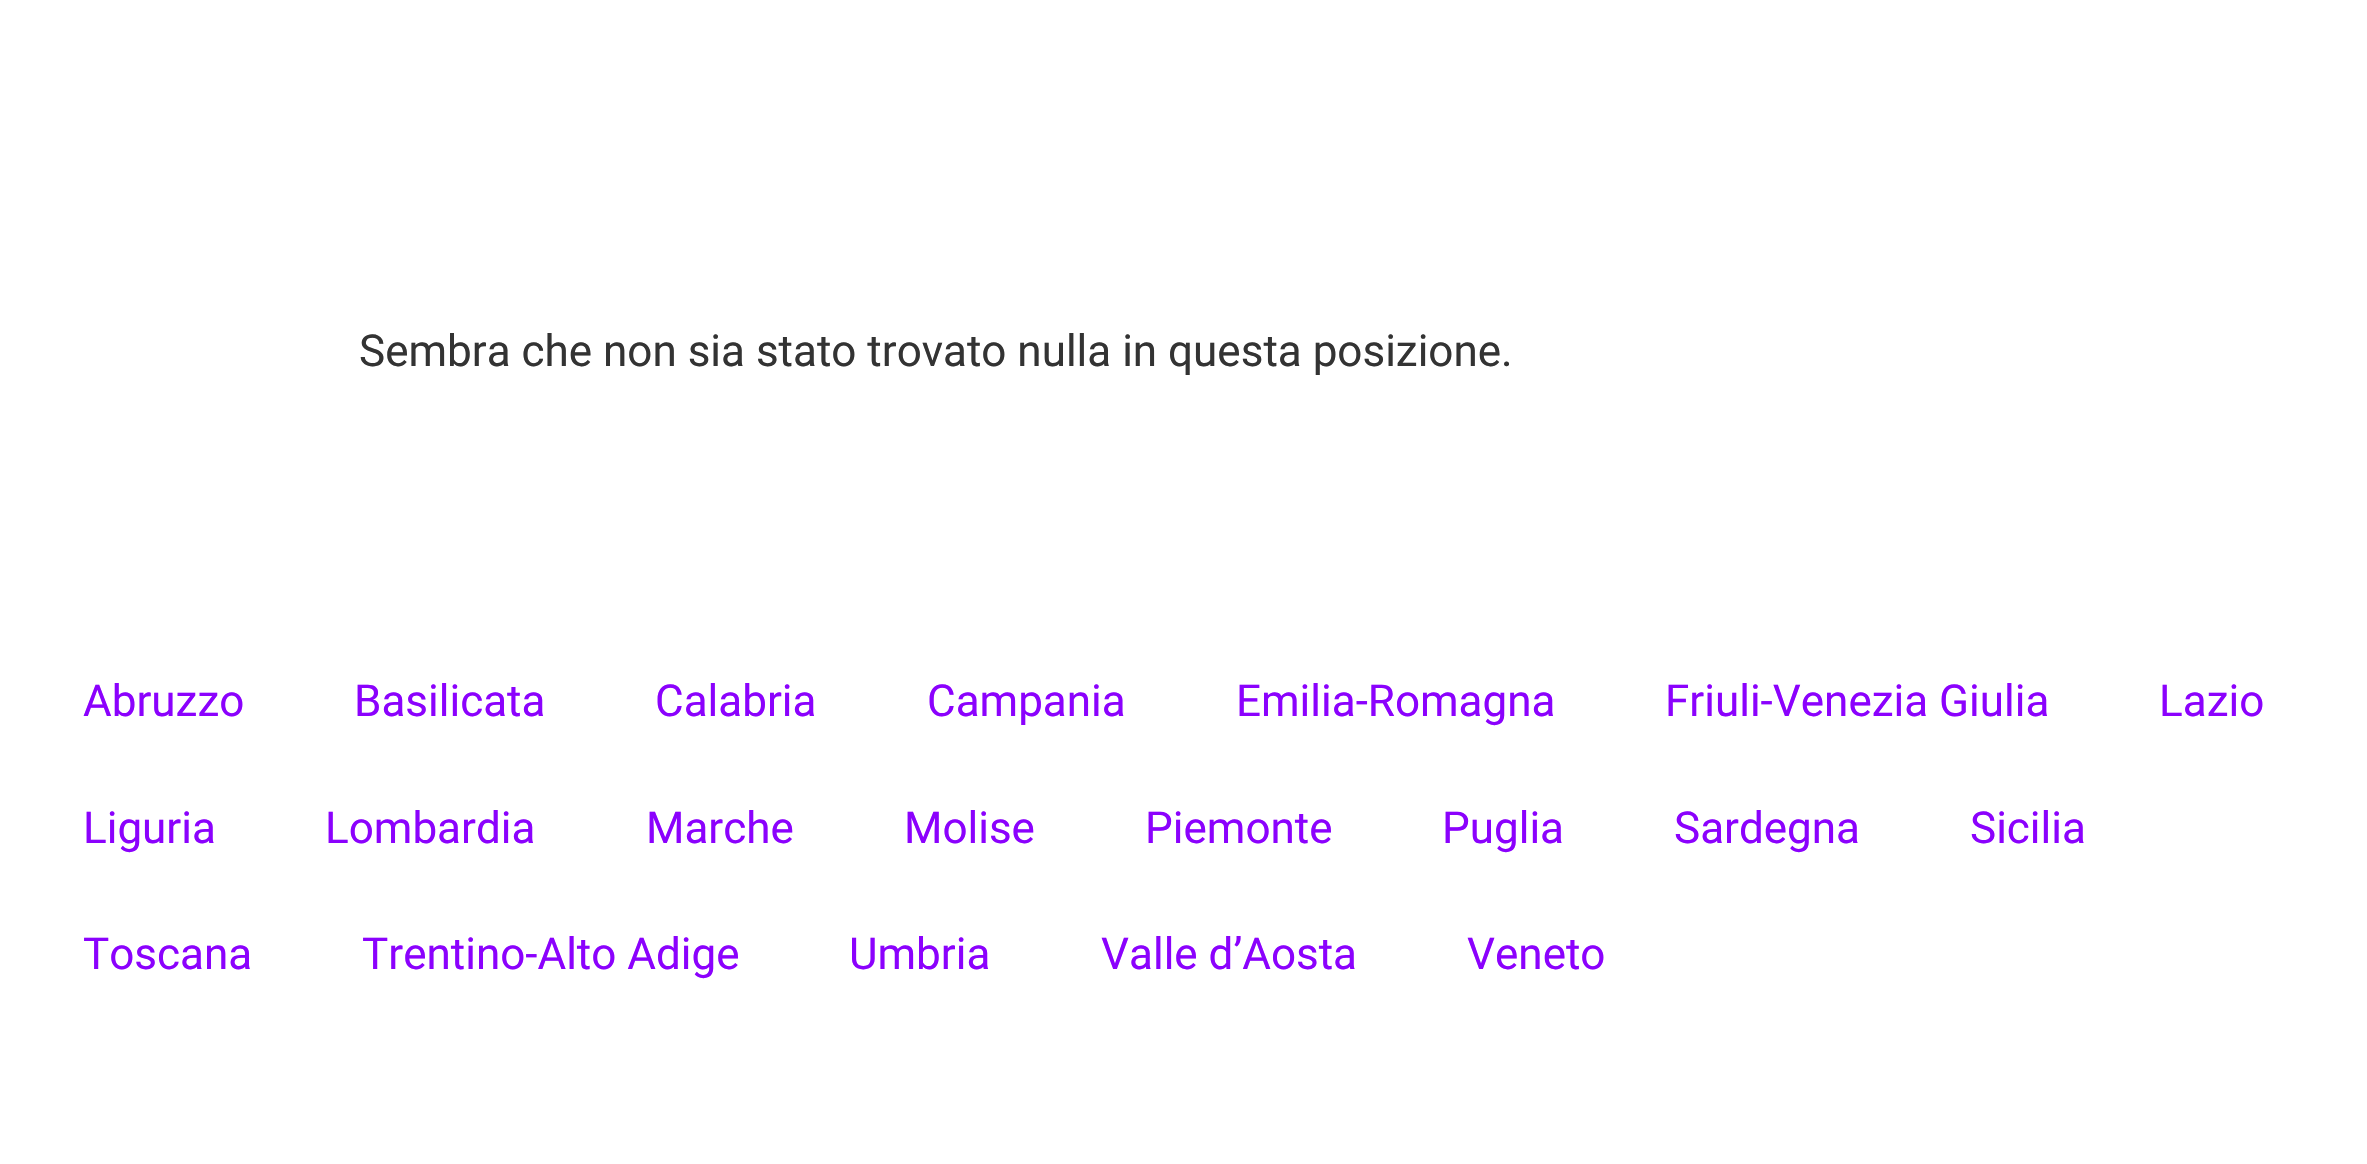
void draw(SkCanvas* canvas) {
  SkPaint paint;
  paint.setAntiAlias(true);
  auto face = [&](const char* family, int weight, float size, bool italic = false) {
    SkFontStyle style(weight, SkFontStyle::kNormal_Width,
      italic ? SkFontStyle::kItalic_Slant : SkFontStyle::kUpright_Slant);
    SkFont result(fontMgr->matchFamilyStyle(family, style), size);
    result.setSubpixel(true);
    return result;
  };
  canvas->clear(0xffffffff);
  auto f0 = face("Roboto", 400, 44);
  paint.setColor(0xff333333);
  canvas->drawString("Sembra che non sia stato trovato nulla in questa posizione.", 359, 366, f0, paint);
  paint.setColor(0xff8b01fd);
  {
    const struct { const char* s; float x, y; } items[] = {
      {"Abruzzo", 83, 716},
      {"Basilicata", 354, 716},
      {"Calabria", 655, 716},
      {"Campania", 927, 716},
      {"Emilia-Romagna", 1236, 716},
      {"Friuli-Venezia Giulia", 1665, 716},
      {"Lazio", 2159, 716},
      {"Liguria", 83, 843},
      {"Lombardia", 325, 843},
      {"Marche", 646, 843},
      {"Molise", 904, 843},
      {"Piemonte", 1145, 843},
      {"Puglia", 1442, 843},
      {"Sardegna", 1674, 843},
      {"Sicilia", 1970, 843},
      {"Toscana", 83, 969},
      {"Trentino-Alto Adige", 362, 969},
      {"Umbria", 849, 969},
      {"Valle d’Aosta", 1101, 969},
      {"Veneto", 1467, 969},
    };
    for (auto [s, x, y] : items) {
      canvas->drawString(s, x, y, f0, paint);
    }
  }
}
